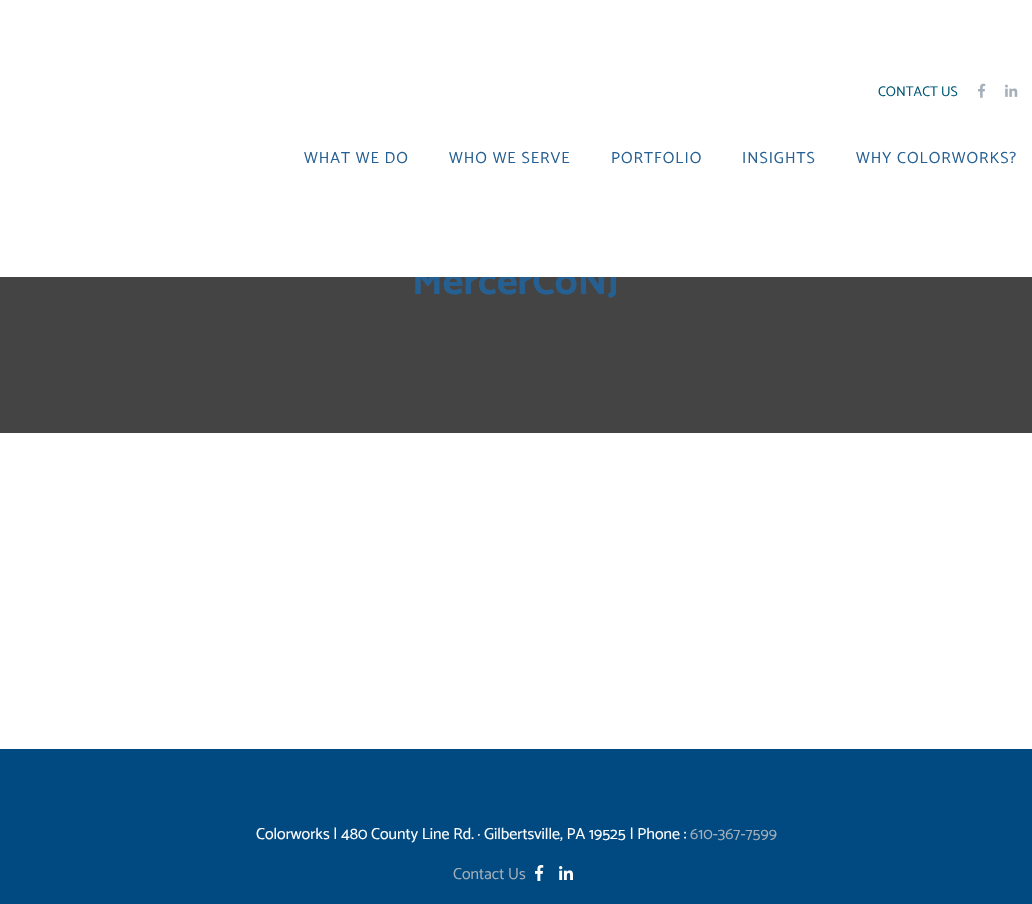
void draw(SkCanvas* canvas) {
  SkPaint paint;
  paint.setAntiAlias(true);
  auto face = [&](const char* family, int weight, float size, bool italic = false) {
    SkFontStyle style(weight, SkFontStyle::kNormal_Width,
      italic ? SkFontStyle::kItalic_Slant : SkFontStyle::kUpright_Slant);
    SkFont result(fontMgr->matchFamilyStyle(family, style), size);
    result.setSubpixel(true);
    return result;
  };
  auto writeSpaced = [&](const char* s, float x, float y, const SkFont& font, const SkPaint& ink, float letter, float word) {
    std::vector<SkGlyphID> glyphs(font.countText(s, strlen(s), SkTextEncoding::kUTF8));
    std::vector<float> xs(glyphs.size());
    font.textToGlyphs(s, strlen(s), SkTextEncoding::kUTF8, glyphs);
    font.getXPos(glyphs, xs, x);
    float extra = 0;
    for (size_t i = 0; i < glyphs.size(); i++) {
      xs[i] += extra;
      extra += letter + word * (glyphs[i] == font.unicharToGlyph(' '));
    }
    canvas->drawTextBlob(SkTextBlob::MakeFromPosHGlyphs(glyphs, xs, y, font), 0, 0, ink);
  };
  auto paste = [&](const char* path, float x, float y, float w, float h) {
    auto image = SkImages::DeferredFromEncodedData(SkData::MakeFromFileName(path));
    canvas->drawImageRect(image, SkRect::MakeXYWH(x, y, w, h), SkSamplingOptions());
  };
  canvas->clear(0xffffffff);
  paste("img/1.png", 978, 83, 8, 15);
  paste("img/2.png", 1005, 84, 13, 13);
  paint.setColor(0xff444444);
  canvas->drawRect(SkRect::MakeXYWH(0, 277, 1032, 156), paint);
  paint.setColor(0xff004981);
  canvas->drawRect(SkRect::MakeXYWH(0, 749, 1032, 155), paint);
  paste("img/3.png", 535, 865, 9, 16);
  paste("img/4.png", 559, 866, 14, 14);
  auto f0 = face("Catamaran", 400, 14);
  paint.setColor(0xff005776);
  canvas->drawString("CONTACT US", 878, 96, f0, paint);
  auto f1 = face("Catamaran", 400, 16);
  paint.setColor(0xff266093);
  {
    const struct { const char* s; float x, y; } items[] = {
      {"WHAT WE DO", 304, 163},
      {"WHO WE SERVE", 449, 163},
      {"PORTFOLIO", 611, 163},
      {"INSIGHTS", 742, 163},
      {"WHY COLORWORKS?", 856, 163},
    };
    for (auto [s, x, y] : items) {
      writeSpaced(s, x, y, f1, paint, 1, 0);
    }
  }
  auto f2 = face("Catamaran", 700, 40);
  canvas->drawString("MercerCoNJ", 412, 294, f2, paint);
  paint.setColor(0xffffffff);
  canvas->drawRect(SkRect::MakeXYWH(415, 266, 202, 11), paint);
  canvas->drawString("Colorworks | 480 County Line Rd. · Gilbertsville, PA 19525 | Phone :", 256, 839, f1, paint);
  paint.setColor(0xffa4afb9);
  canvas->drawString("610-367-7599", 690, 839, f1, paint);
  canvas->drawString("Contact Us", 453, 879, f1, paint);
}
